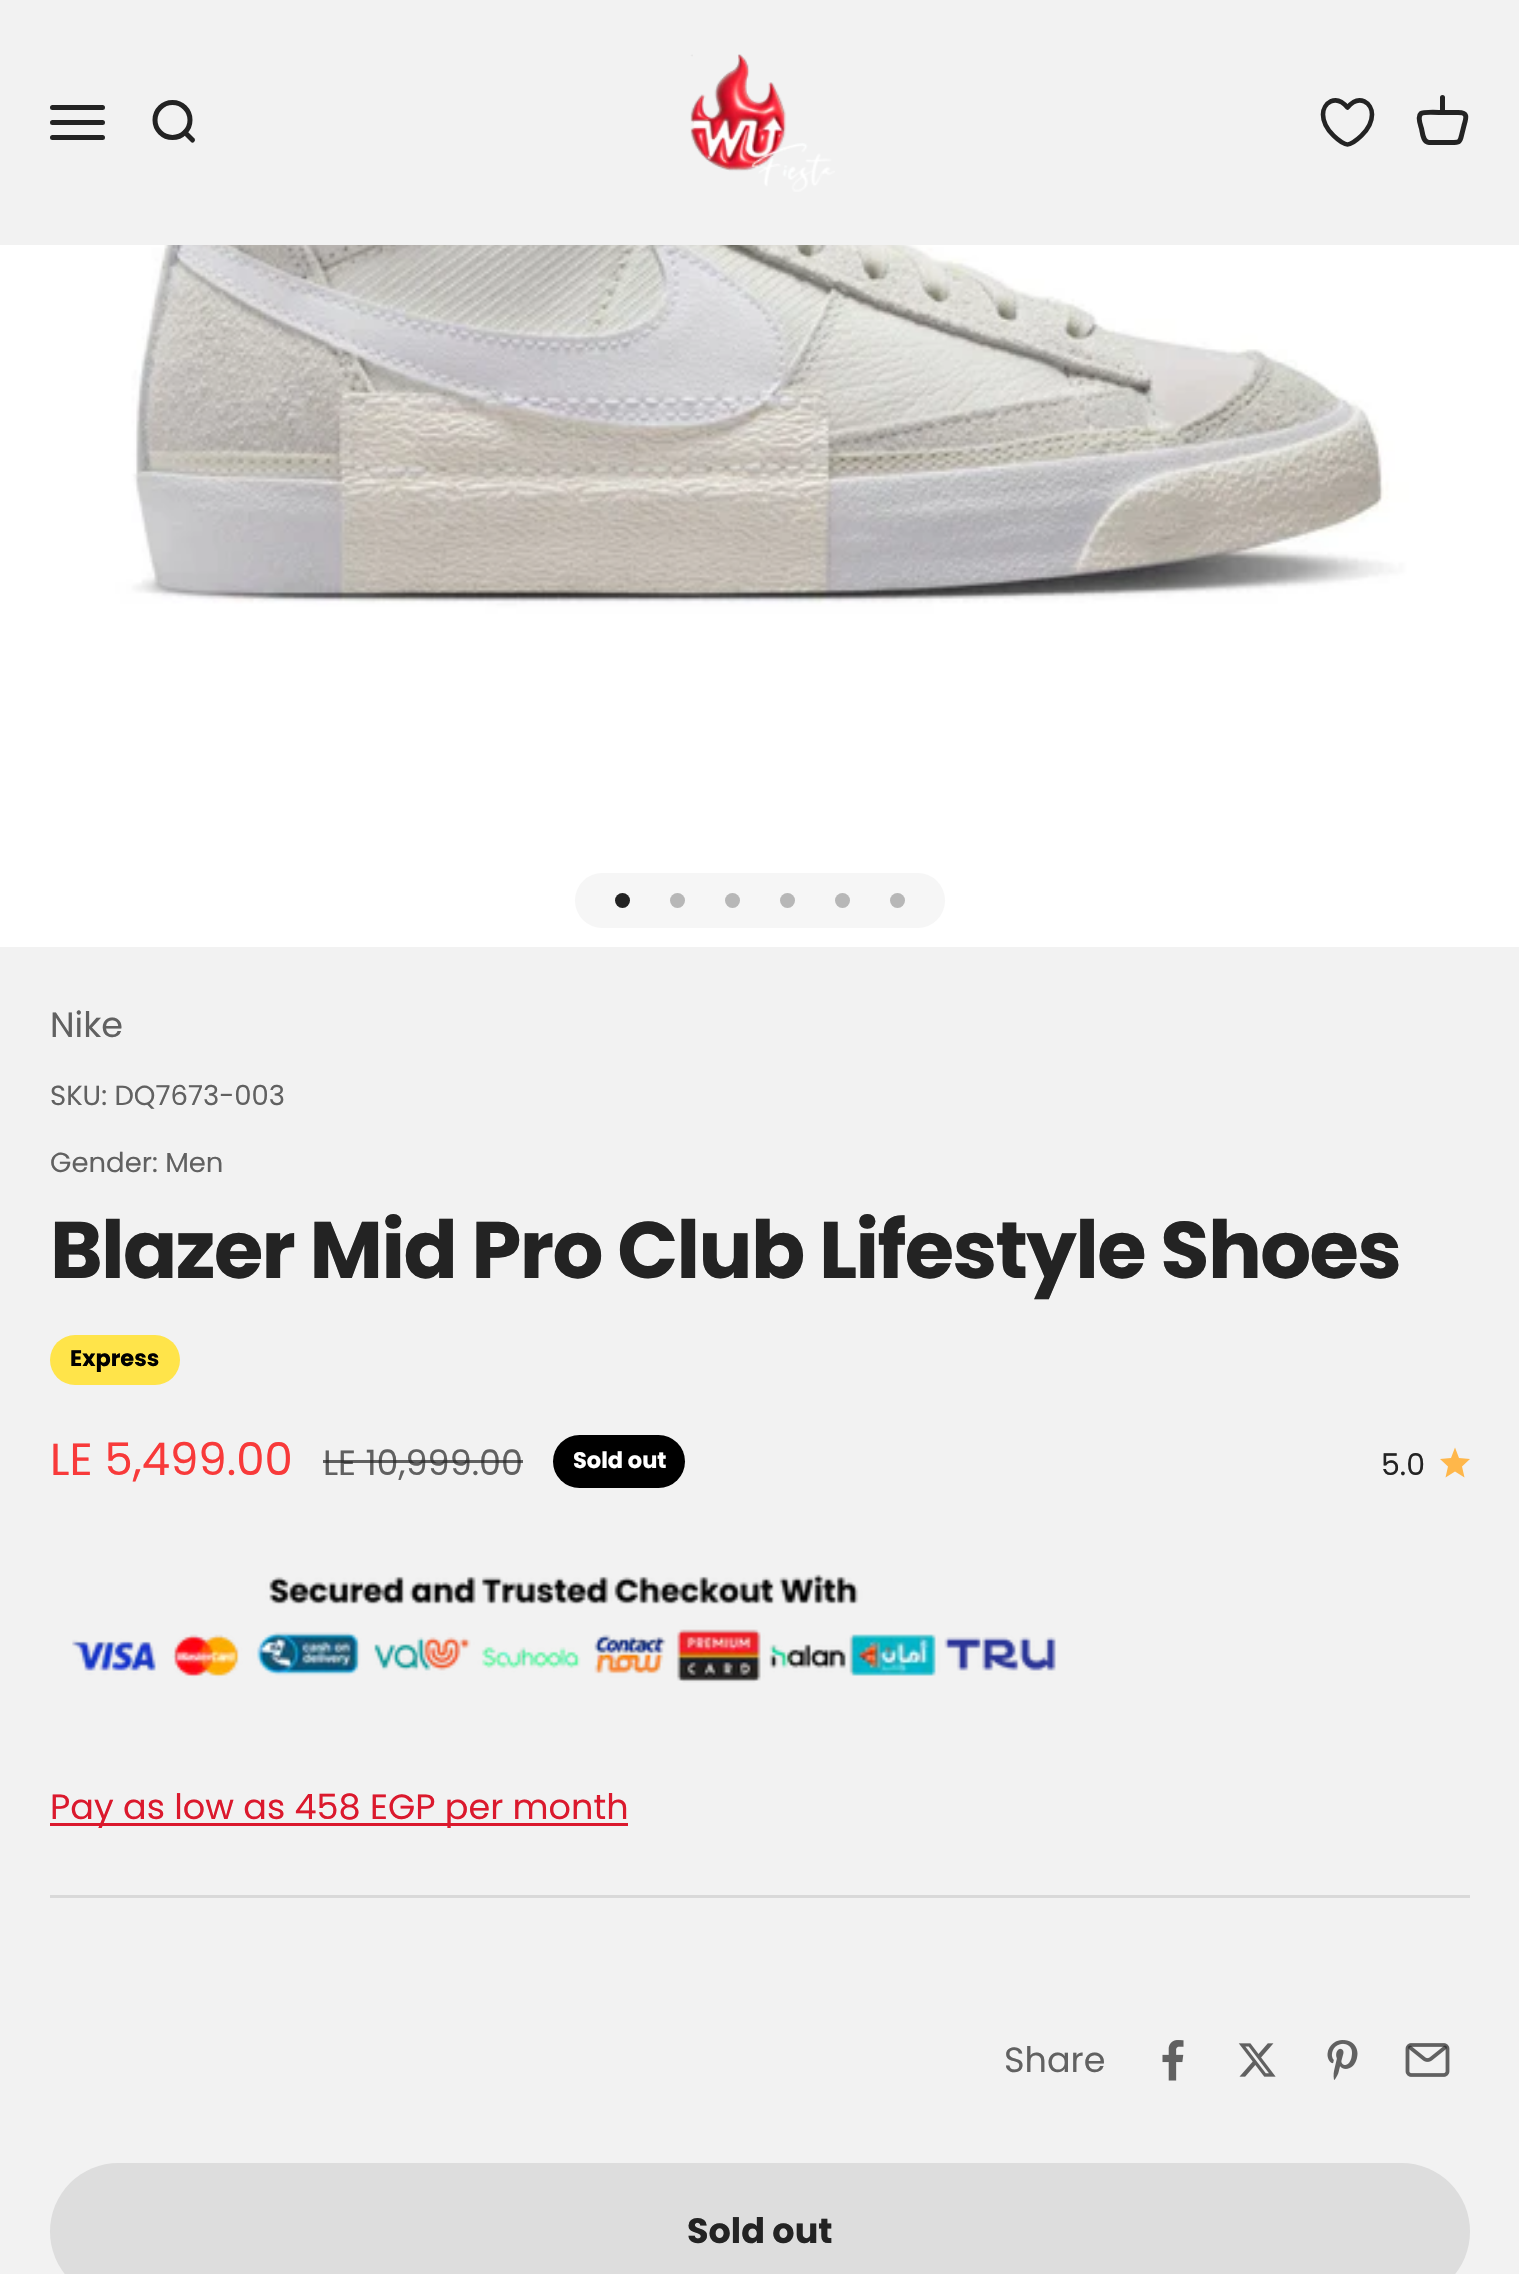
void draw(SkCanvas* canvas) {
  SkPaint paint;
  paint.setAntiAlias(true);
  auto face = [&](const char* family, int weight, float size, bool italic = false) {
    SkFontStyle style(weight, SkFontStyle::kNormal_Width,
      italic ? SkFontStyle::kItalic_Slant : SkFontStyle::kUpright_Slant);
    SkFont result(fontMgr->matchFamilyStyle(family, style), size);
    result.setSubpixel(true);
    return result;
  };
  auto writeSpaced = [&](const char* s, float x, float y, const SkFont& font, const SkPaint& ink, float letter, float word) {
    std::vector<SkGlyphID> glyphs(font.countText(s, strlen(s), SkTextEncoding::kUTF8));
    std::vector<float> xs(glyphs.size());
    font.textToGlyphs(s, strlen(s), SkTextEncoding::kUTF8, glyphs);
    font.getXPos(glyphs, xs, x);
    float extra = 0;
    for (size_t i = 0; i < glyphs.size(); i++) {
      xs[i] += extra;
      extra += letter + word * (glyphs[i] == font.unicharToGlyph(' '));
    }
    canvas->drawTextBlob(SkTextBlob::MakeFromPosHGlyphs(glyphs, xs, y, font), 0, 0, ink);
  };
  auto paste = [&](const char* path, float x, float y, float w, float h) {
    auto image = SkImages::DeferredFromEncodedData(SkData::MakeFromFileName(path));
    canvas->drawImageRect(image, SkRect::MakeXYWH(x, y, w, h), SkSamplingOptions());
  };
  auto shape = [&](const char* data, bool evenOdd = false) {
    SkPath result = *SkParsePath::FromSVGString(data);
    if (evenOdd) result.setFillType(SkPathFillType::kEvenOdd);
    return result;
  };
  canvas->clear(0xfff2f2f2);
  paint.setStroke(true);
  paint.setStrokeWidth(5);
  paint.setStrokeCap(SkPaint::kRound_Cap);
  paint.setColor(0xff232323);
  canvas->drawPath(shape("M52.5 107.5H102.5M52.5 122.5H102.5M52.5 137.5H102.5"), paint);
  paint.setStrokeCap(SkPaint::kButt_Cap);
  canvas->drawCircle(172.5f, 120, 17.5f, paint);
  paint.setStrokeCap(SkPaint::kRound_Cap);
  paint.setStrokeJoin(SkPaint::kRound_Join);
  canvas->drawPath(shape("M185 132.5L192.5 140"), paint);
  paste("img/1.png", 690, 54, 145, 138);
  paint.setStrokeWidth(4.6f);
  canvas->drawPath(shape("M1347.5 107.5C1335.5 93 1323 103.5 1323 114.5C1323 131 1343 144.5 1347.5 144.5C1352 144.5 1372 131 1372 114.5C1372 103.5 1359.5 93 1347.5 107.5Z"), paint);
  paint.setStrokeWidth(5);
  canvas->drawPath(shape("M1442.5 112.5C1438.5 112.5 1423.5 111.5 1421 113.5C1417 117 1420.5 125 1421.5 128.5C1422.5 133 1423 142.5 1429 142.5H1451.5C1459 142.5 1460 142.5 1461.5 135.5L1464 125.5C1466.5 117 1468 112.5 1458 112.5ZM1442.5 112.5V97.5"), paint);
  paste("img/2.png", 0, 245, 1519, 702);
  paint.setStroke(false);
  paint.setColor(0xfff6f6f6);
  canvas->drawRoundRect(SkRect::MakeXYWH(575, 873, 370, 55), 27.5f, 27.5f, paint);
  paint.setColor(0xff232323);
  canvas->drawCircle(622.5f, 900.5f, 7.5f, paint);
  paint.setColor(0xffb7b7b7);
  canvas->drawCircle(677.5f, 900.5f, 7.5f, paint);
  canvas->drawCircle(732.5f, 900.5f, 7.5f, paint);
  canvas->drawCircle(787.5f, 900.5f, 7.5f, paint);
  canvas->drawCircle(842.5f, 900.5f, 7.5f, paint);
  canvas->drawCircle(897.5f, 900.5f, 7.5f, paint);
  paint.setColor(0xffffe44a);
  canvas->drawRoundRect(SkRect::MakeXYWH(50, 1335, 130, 50), 25, 25, paint);
  paint.setColor(0xff000000);
  canvas->drawRoundRect(SkRect::MakeXYWH(553, 1435, 132, 53), 26.5f, 26.5f, paint);
  paint.setColor(0xffffb74a);
  canvas->drawPath(shape("M1455 1447.5L1459 1458L1470 1459L1462 1466.5L1464.5 1477.5L1455 1471.5L1445.5 1477.5L1448 1466.5L1440 1459L1451 1458Z"), paint);
  paste("img/3.png", 72, 1574, 984, 109);
  paint.setColor(0xffdb192d);
  canvas->drawRect(SkRect::MakeXYWH(50, 1823, 578, 3), paint);
  paint.setColor(0xffd9d9d9);
  canvas->drawRect(SkRect::MakeXYWH(50, 1895, 1420, 3), paint);
  paste("img/4.png", 1162, 2040, 22, 41);
  paste("img/5.png", 1238, 2043, 38, 34);
  paste("img/6.png", 1327, 2040, 31, 40);
  paste("img/7.png", 1405, 2043, 45, 34);
  paint.setColor(0xffdddddd);
  canvas->drawRoundRect(SkRect::MakeXYWH(50, 2163, 1420, 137), 68.5f, 68.5f, paint);
  auto f0 = face("Poppins", 400, 35);
  paint.setColor(0xff616161);
  canvas->drawString("Nike", 50, 1037, f0, paint);
  auto f1 = face("Poppins", 400, 27.5f);
  canvas->drawString("SKU: DQ7673-003", 50, 1105, f1, paint);
  canvas->drawString("Gender: Men", 50, 1172, f1, paint);
  auto f2 = face("Poppins", 700, 80);
  paint.setColor(0xff232323);
  writeSpaced("Blazer Mid Pro Club Lifestyle Shoes", 50, 1278, f2, paint, -1.6f, 0);
  auto f3 = face("Poppins", 700, 22.5f);
  paint.setColor(0xff000000);
  canvas->drawString("Express", 70, 1366, f3, paint);
  auto f4 = face("Poppins", 400, 45);
  paint.setColor(0xfff83a3a);
  canvas->drawString("LE 5,499.00", 50, 1475, f4, paint);
  paint.setColor(0xff616161);
  canvas->drawString("LE 10,999.00", 323, 1475, f0, paint);
  paint.setColor(0xb3232323);
  canvas->drawRect(SkRect::MakeXYWH(323, 1460, 200, 3), paint);
  paint.setColor(0xffffffff);
  canvas->drawString("Sold out", 573, 1468, f3, paint);
  auto f5 = face("Poppins", 400, 30);
  paint.setColor(0xff232323);
  canvas->drawString("5.0", 1381, 1475, f5, paint);
  paint.setColor(0xffdb192d);
  canvas->drawString("Pay as low as 458 EGP per month", 50, 1819, f0, paint);
  paint.setColor(0xff616161);
  canvas->drawString("Share", 1004, 2072, f0, paint);
  auto f6 = face("Poppins", 700, 35);
  paint.setColor(0xff232323);
  canvas->drawString("Sold out", 687, 2243, f6, paint);
}
